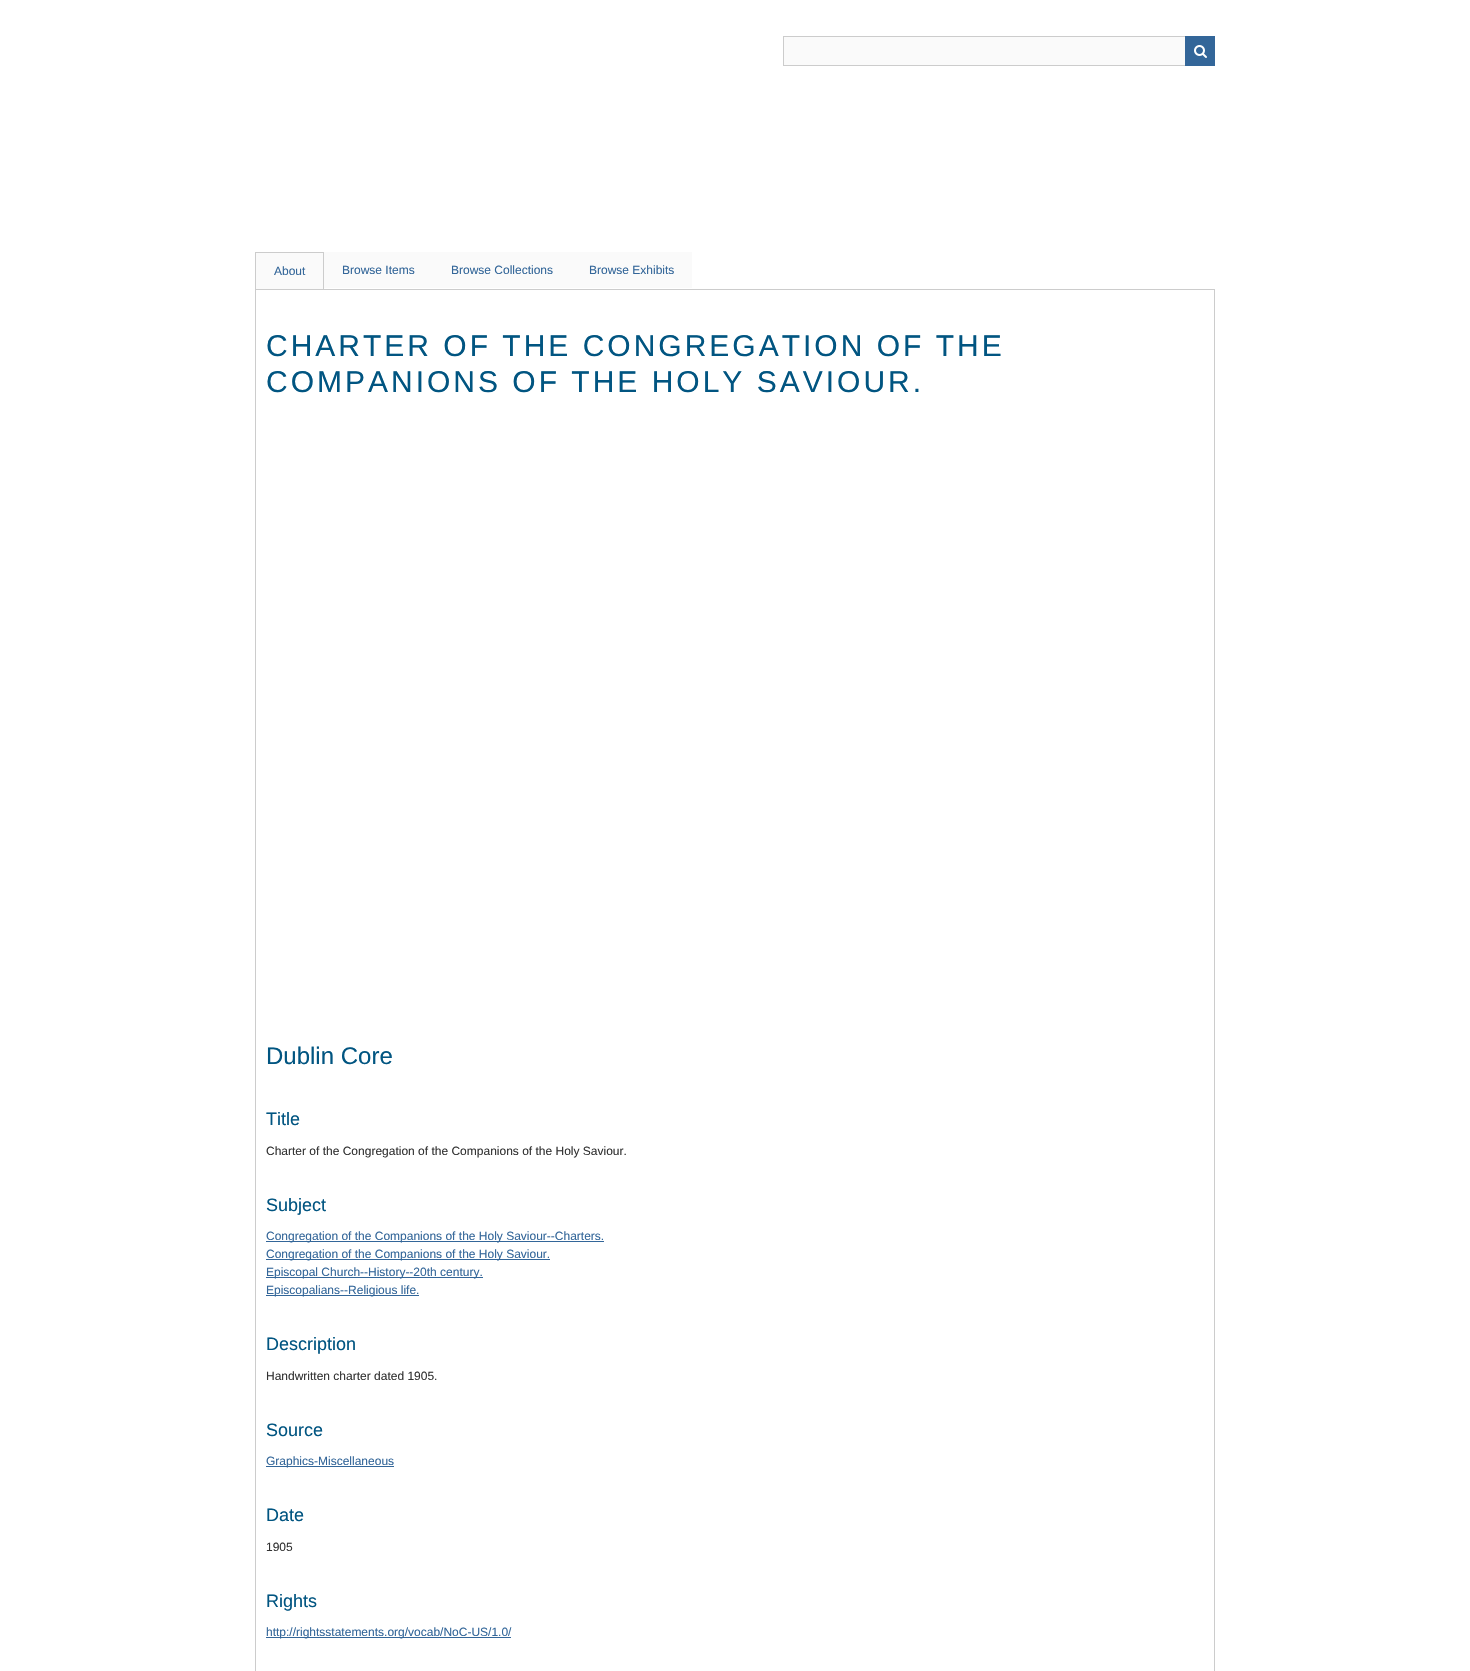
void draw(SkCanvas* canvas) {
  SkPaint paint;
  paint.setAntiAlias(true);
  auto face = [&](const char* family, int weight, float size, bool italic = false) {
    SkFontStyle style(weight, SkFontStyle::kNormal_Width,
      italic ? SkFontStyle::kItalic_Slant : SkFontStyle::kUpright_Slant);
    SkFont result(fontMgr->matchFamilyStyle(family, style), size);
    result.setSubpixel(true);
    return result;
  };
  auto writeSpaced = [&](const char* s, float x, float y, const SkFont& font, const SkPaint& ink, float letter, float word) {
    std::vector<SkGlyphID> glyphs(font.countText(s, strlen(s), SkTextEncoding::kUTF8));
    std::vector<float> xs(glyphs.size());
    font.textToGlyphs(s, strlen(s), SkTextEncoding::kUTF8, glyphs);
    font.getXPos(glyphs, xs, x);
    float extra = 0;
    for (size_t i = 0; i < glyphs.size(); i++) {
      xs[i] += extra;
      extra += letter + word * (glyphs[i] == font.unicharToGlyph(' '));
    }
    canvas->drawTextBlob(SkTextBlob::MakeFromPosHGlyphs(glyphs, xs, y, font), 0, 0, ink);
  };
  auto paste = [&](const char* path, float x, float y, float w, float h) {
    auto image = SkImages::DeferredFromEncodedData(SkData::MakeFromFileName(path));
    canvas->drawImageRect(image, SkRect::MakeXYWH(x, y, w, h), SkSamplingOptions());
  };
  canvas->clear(0xffffffff);
  paint.setColor(0xfffafafa);
  canvas->drawRect(SkRect::MakeXYWH(784, 37, 401, 28), paint);
  paint.setStroke(true);
  paint.setStrokeWidth(1);
  paint.setColor(0xffcccccc);
  canvas->drawRect(SkRect::MakeXYWH(783.5f, 36.5f, 431, 29), paint);
  paint.setStroke(false);
  paint.setColor(0xff336699);
  canvas->drawRect(SkRect::MakeXYWH(1185, 36, 30, 30), paint);
  paste("img/1.png", 1194, 45, 13, 13);
  paint.setStroke(true);
  paint.setColor(0xffcccccc);
  canvas->drawRect(SkRect::MakeXYWH(255.5f, 289.5f, 959, 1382), paint);
  paint.setStroke(false);
  paint.setColor(0xfffafafa);
  canvas->drawRect(SkRect::MakeXYWH(255.5f, 252.5f, 68, 37), paint);
  paint.setStroke(true);
  paint.setColor(0xffcccccc);
  canvas->drawRect(SkRect::MakeXYWH(255.5f, 252.5f, 68, 37), paint);
  paint.setStroke(false);
  {
    const struct { float x, y, w, h; SkColor color; } items[] = {
      {324, 252, 368, 36, 0xfffafafa},
      {266, 1241, 338, 1, 0xff336699},
      {266, 1259, 284, 1, 0xff336699},
      {266, 1277, 217, 1, 0xff336699},
      {266, 1295, 153, 1, 0xff336699},
      {266, 1466, 128, 1, 0xff336699},
      {266, 1637, 245, 1, 0xff336699},
    };
    for (auto [x, y, w, h, color] : items) {
      paint.setColor(color);
      canvas->drawRect(SkRect::MakeXYWH(x, y, w, h), paint);
    }
  }
  auto f0 = face("Liberation Sans", 400, 12);
  {
    const struct { const char* s; float x, y; } items[] = {
      {"About", 274, 275},
      {"Browse Items", 342, 274},
      {"Browse Collections", 451, 274},
      {"Browse Exhibits", 589, 274},
    };
    for (auto [s, x, y] : items) {
      canvas->drawString(s, x, y, f0, paint);
    }
  }
  auto f1 = face("Liberation Sans", 400, 30);
  paint.setColor(0xff015581);
  writeSpaced("CHARTER OF THE CONGREGATION OF THE", 266, 356, f1, paint, 3, 0);
  writeSpaced("COMPANIONS OF THE HOLY SAVIOUR.", 266, 392, f1, paint, 3, 0);
  auto f2 = face("Liberation Sans", 400, 24);
  canvas->drawString("Dublin Core", 266, 1064, f2, paint);
  auto f3 = face("Liberation Sans", 400, 18);
  canvas->drawString("Title", 266, 1125, f3, paint);
  paint.setColor(0xff333333);
  canvas->drawString("Charter of the Congregation of the Companions of the Holy Saviour.", 266, 1155, f0, paint);
  paint.setColor(0xff015581);
  canvas->drawString("Subject", 266, 1211, f3, paint);
  paint.setColor(0xff336699);
  {
    const struct { const char* s; float x, y; } items[] = {
      {"Congregation of the Companions of the Holy Saviour--Charters.", 266, 1240},
      {"Congregation of the Companions of the Holy Saviour.", 266, 1258},
      {"Episcopal Church--History--20th century.", 266, 1276},
      {"Episcopalians--Religious life.", 266, 1294},
    };
    for (auto [s, x, y] : items) {
      canvas->drawString(s, x, y, f0, paint);
    }
  }
  paint.setColor(0xff015581);
  canvas->drawString("Description", 266, 1350, f3, paint);
  paint.setColor(0xff333333);
  canvas->drawString("Handwritten charter dated 1905.", 266, 1380, f0, paint);
  paint.setColor(0xff015581);
  canvas->drawString("Source", 266, 1436, f3, paint);
  paint.setColor(0xff336699);
  canvas->drawString("Graphics-Miscellaneous", 266, 1465, f0, paint);
  paint.setColor(0xff015581);
  canvas->drawString("Date", 266, 1521, f3, paint);
  paint.setColor(0xff333333);
  canvas->drawString("1905", 266, 1551, f0, paint);
  paint.setColor(0xff015581);
  canvas->drawString("Rights", 266, 1607, f3, paint);
  paint.setColor(0xff336699);
  canvas->drawString("http://rightsstatements.org/vocab/NoC-US/1.0/", 266, 1636, f0, paint);
}
